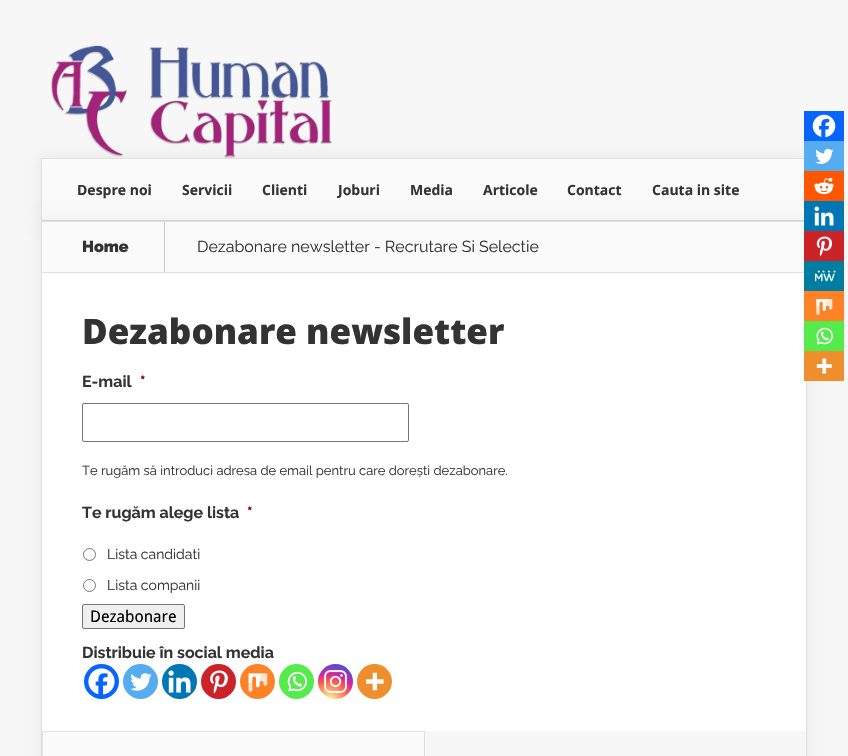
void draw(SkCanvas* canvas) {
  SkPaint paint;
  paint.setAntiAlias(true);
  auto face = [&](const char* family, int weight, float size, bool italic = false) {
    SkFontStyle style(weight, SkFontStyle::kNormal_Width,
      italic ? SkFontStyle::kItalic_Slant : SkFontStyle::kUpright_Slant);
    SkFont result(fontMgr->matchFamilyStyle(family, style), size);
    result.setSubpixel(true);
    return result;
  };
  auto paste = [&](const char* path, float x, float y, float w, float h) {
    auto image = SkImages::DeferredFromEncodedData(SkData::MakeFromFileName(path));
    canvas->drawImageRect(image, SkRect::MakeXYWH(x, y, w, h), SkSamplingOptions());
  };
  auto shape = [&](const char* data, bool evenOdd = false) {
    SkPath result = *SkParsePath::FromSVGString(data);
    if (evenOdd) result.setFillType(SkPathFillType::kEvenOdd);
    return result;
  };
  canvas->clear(0xfff7f7f7);
  paint.setColor(0x12000000);
  paint.setMaskFilter(SkMaskFilter::MakeBlur(kNormal_SkBlurStyle, 7.5f));
  canvas->drawRect(SkRect::MakeXYWH(41, 158, 766, 63), paint);
  paint.setMaskFilter(nullptr);
  paste("img/1.png", 50, 45, 282, 113);
  {
    const struct { float x, y, w, h; SkColor color; } items[] = {
      {42, 160, 762, 60, 0xfffafafa},
      {42, 220, 764, 1, 0xffdadada},
      {42, 159, 764, 1, 0xffffffff},
      {41, 158, 766, 1, 0xffe0e0e0},
      {41, 158, 1, 63, 0xffe0e0e0},
    };
    for (auto [x, y, w, h, color] : items) {
      paint.setColor(color);
      canvas->drawRect(SkRect::MakeXYWH(x, y, w, h), paint);
    }
  }
  paint.setColor(0x12000000);
  paint.setMaskFilter(SkMaskFilter::MakeBlur(kNormal_SkBlurStyle, 7.5f));
  canvas->drawRect(SkRect::MakeXYWH(41, 221, 766, 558), paint);
  paint.setMaskFilter(nullptr);
  {
    const struct { float x, y, w, h; SkColor color; } items[] = {
      {42, 273, 764, 458, 0xffffffff},
      {806, 381, 1, 375, 0xffe0e0e0},
      {41, 221, 1, 535, 0xffe0e0e0},
      {43, 223, 761, 49, 0xfffafafa},
    };
    for (auto [x, y, w, h, color] : items) {
      paint.setColor(color);
      canvas->drawRect(SkRect::MakeXYWH(x, y, w, h), paint);
    }
  }
  canvas->save();
  canvas->clipRect(SkRect::MakeXYWH(42, 222, 766, 50));
  paint.setColor(0xffffffff);
  canvas->drawPath(shape("M-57 123H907V371H-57ZM43 223H809V273H43Z", true), paint);
  canvas->restore();
  {
    const struct { float x, y, w, h; SkColor color; } items[] = {
      {42, 221, 766, 1, 0xffe0e0e0},
      {42, 272, 766, 1, 0xffe0e0e0},
      {164, 222, 1, 50, 0xffcac9c9},
      {804, 111, 40, 30, 0xff0765fe},
    };
    for (auto [x, y, w, h, color] : items) {
      paint.setColor(color);
      canvas->drawRect(SkRect::MakeXYWH(x, y, w, h), paint);
    }
  }
  paste("img/2.png", 812, 114, 24, 24);
  paint.setColor(0xff55acee);
  canvas->drawRect(SkRect::MakeXYWH(804, 141, 40, 30), paint);
  paste("img/3.png", 815, 148, 19, 16);
  paint.setColor(0xffff5700);
  canvas->drawRect(SkRect::MakeXYWH(804, 171, 40, 30), paint);
  paste("img/4.png", 814, 177, 20, 18);
  paint.setColor(0xff0077b5);
  canvas->drawRect(SkRect::MakeXYWH(804, 201, 40, 30), paint);
  paste("img/5.png", 814, 206, 20, 20);
  paint.setColor(0xffcc2329);
  canvas->drawRect(SkRect::MakeXYWH(804, 231, 40, 30), paint);
  paste("img/6.png", 816, 236, 17, 21);
  paint.setColor(0xff007da1);
  canvas->drawRect(SkRect::MakeXYWH(804, 261, 40, 30), paint);
  paste("img/7.png", 815, 270, 21, 12);
  paint.setColor(0xffff8226);
  canvas->drawRect(SkRect::MakeXYWH(804, 291, 40, 30), paint);
  paste("img/8.png", 816, 299, 17, 16);
  paint.setColor(0xff55eb4c);
  canvas->drawRect(SkRect::MakeXYWH(804, 321, 40, 30), paint);
  paste("img/9.png", 816, 327, 17, 18);
  paint.setColor(0xffee8e2d);
  canvas->drawRect(SkRect::MakeXYWH(804, 351, 40, 30), paint);
  paste("img/10.png", 816, 358, 16, 16);
  paint.setStroke(true);
  paint.setStrokeWidth(1);
  paint.setColor(0xff767676);
  canvas->drawRoundRect(SkRect::MakeXYWH(82.5f, 403.5f, 326, 38), 1.5f, 1.5f, paint);
  canvas->drawCircle(89.5f, 554.5f, 6, paint);
  canvas->drawCircle(89.5f, 585.5f, 6, paint);
  paint.setStroke(false);
  paint.setColor(0xffefefef);
  canvas->drawRoundRect(SkRect::MakeXYWH(82.5f, 604.5f, 102, 24), 1.5f, 1.5f, paint);
  paint.setStroke(true);
  paint.setColor(0xff767676);
  canvas->drawRoundRect(SkRect::MakeXYWH(82.5f, 604.5f, 102, 24), 1.5f, 1.5f, paint);
  paint.setStroke(false);
  paint.setColor(0xff0765fe);
  canvas->drawCircle(101.5f, 681.5f, 17.5f, paint);
  paste("img/11.png", 88, 668, 27, 27);
  paint.setColor(0xff55acee);
  canvas->drawCircle(140.5f, 681.5f, 17.5f, paint);
  paste("img/12.png", 130, 673, 22, 18);
  paint.setColor(0xff0077b5);
  canvas->drawCircle(179.5f, 681.5f, 17.5f, paint);
  paste("img/13.png", 168, 670, 23, 23);
  paint.setColor(0xffcc2329);
  canvas->drawCircle(218.5f, 681.5f, 17.5f, paint);
  paste("img/14.png", 210, 670, 18, 24);
  paint.setColor(0xffff8226);
  canvas->drawCircle(257.5f, 681.5f, 17.5f, paint);
  paste("img/15.png", 248, 673, 20, 19);
  paint.setColor(0xff55eb4c);
  canvas->drawCircle(296.5f, 681.5f, 17.5f, paint);
  paste("img/16.png", 287, 671, 20, 21);
  {
    const SkColor colors[] = {0xfffdf497, 0xfffdf497, 0xfffd5949, 0xffd6249f, 0xff285aeb};
    const float stops[] = {0, 0.05f, 0.45f, 0.6f, 0.9f};
    paint.setShader(SkGradientShader::MakeRadial({329, 701}, 45, colors, stops, 5, SkTileMode::kClamp));
    paint.setAlpha(255);
  }
  canvas->drawCircle(335.5f, 681.5f, 17.5f, paint);
  paste("img/17.png", 324, 670, 23, 23);
  paint.setShader(nullptr);
  paint.setColor(0xffee8e2d);
  canvas->drawCircle(374.5f, 681.5f, 17.5f, paint);
  paste("img/18.png", 366, 672, 18, 19);
  paint.setColor(0xfff7f7f7);
  canvas->drawRect(SkRect::MakeXYWH(425, 731, 381, 25), paint);
  paint.setColor(0xfffafafa);
  canvas->drawRect(SkRect::MakeXYWH(44, 733, 380, 23), paint);
  canvas->save();
  canvas->clipRect(SkRect::MakeXYWH(43, 732, 381, 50));
  paint.setColor(0xffffffff);
  canvas->drawPath(shape("M-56 633H523V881H-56ZM44 733H425V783H44Z", true), paint);
  canvas->restore();
  {
    const struct { float x, y, w, h; SkColor color; } items[] = {
      {42, 731, 382, 1, 0xffe0e0e0},
      {42, 731, 1, 25, 0xffe0e0e0},
      {424, 731, 1, 25, 0xffe0e0e0},
    };
    for (auto [x, y, w, h, color] : items) {
      paint.setColor(color);
      canvas->drawRect(SkRect::MakeXYWH(x, y, w, h), paint);
    }
  }
  auto f0 = face("Open Sans", 700, 14);
  paint.setColor(0xff333333);
  {
    const struct { const char* s; float x, y; } items[] = {
      {"Despre noi", 77, 195},
      {"Servicii", 182, 195},
      {"Clienti", 262, 195},
      {"Joburi", 338, 195},
      {"Media", 410, 195},
      {"Articole", 483, 195},
      {"Contact", 567, 195},
      {"Cauta in site", 652, 195},
    };
    for (auto [s, x, y] : items) {
      canvas->drawString(s, x, y, f0, paint);
    }
  }
  auto f1 = face("Raleway", 900, 16);
  canvas->drawString("Home", 82, 252, f1, paint);
  auto f2 = face("Raleway", 400, 16);
  canvas->drawString("Dezabonare newsletter - Recrutare Si Selectie", 197, 252, f2, paint);
  auto f3 = face("Open Sans", 800, 35);
  canvas->drawString("Dezabonare newsletter", 82, 344, f3, paint);
  auto f4 = face("Raleway", 700, 16);
  canvas->drawString("E-mail", 82, 387, f4, paint);
  paint.setColor(0xff790000);
  canvas->drawString("*", 140, 387, f4, paint);
  auto f5 = face("Raleway", 400, 13);
  paint.setColor(0xff333333);
  canvas->drawString("Te rugăm să introduci adresa de email pentru care dorești dezabonare.", 82, 475, f5, paint);
  canvas->drawString("Te rugăm alege lista", 82, 518, f4, paint);
  paint.setColor(0xff790000);
  canvas->drawString("*", 247, 518, f4, paint);
  auto f6 = face("Raleway", 400, 14);
  paint.setColor(0xff333333);
  canvas->drawString("Lista candidati", 107, 559, f6, paint);
  canvas->drawString("Lista companii", 107, 590, f6, paint);
  auto f7 = face("Droid Sans", 400, 16);
  paint.setColor(0xff000000);
  canvas->drawString("Dezabonare", 90, 622, f7, paint);
  paint.setColor(0xff333333);
  canvas->drawString("Distribuie în social media", 82, 658, f4, paint);
}
